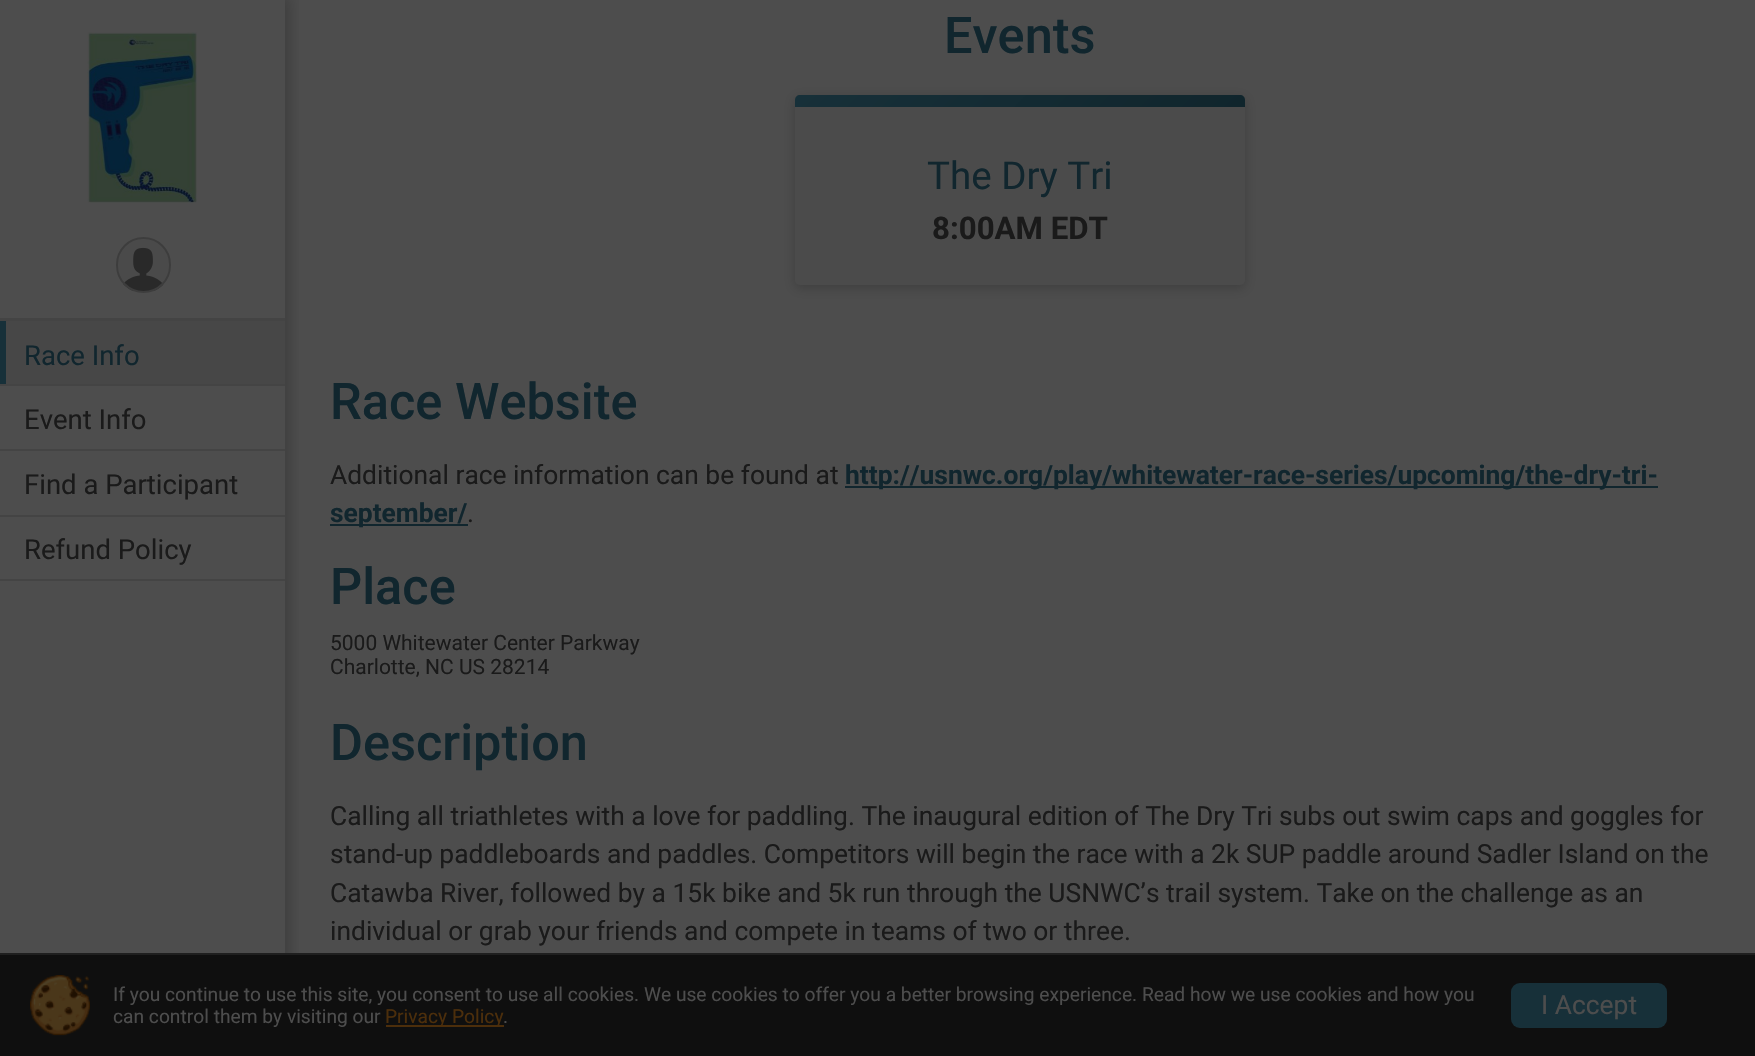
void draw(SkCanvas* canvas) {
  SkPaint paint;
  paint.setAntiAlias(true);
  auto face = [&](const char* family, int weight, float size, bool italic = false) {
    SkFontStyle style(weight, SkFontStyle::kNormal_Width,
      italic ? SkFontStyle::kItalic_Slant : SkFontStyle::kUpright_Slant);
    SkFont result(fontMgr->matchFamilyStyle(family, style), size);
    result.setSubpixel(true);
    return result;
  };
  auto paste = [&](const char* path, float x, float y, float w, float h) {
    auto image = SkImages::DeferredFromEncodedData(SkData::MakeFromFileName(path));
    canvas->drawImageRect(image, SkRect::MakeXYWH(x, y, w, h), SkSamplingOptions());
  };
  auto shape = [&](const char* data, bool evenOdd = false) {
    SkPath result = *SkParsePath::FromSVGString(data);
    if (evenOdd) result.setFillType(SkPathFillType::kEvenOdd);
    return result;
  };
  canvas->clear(0xff4d4d4d);
  canvas->save();
  canvas->clipRect(SkRect::MakeXYWH(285, 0, 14, 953));
  paint.setColor(0x33000000);
  paint.setMaskFilter(SkMaskFilter::MakeBlur(kNormal_SkBlurStyle, 7));
  canvas->drawRect(SkRect::MakeXYWH(-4, -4, 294, 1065), paint);
  paint.setMaskFilter(nullptr);
  canvas->restore();
  paste("img/1.png", 87, 32, 110, 171);
  paste("img/2.png", 117, 239, 53, 52);
  paint.setStroke(true);
  paint.setStrokeWidth(2);
  paint.setColor(0xff3d3d3d);
  canvas->drawRoundRect(SkRect::MakeXYWH(117, 238, 53, 54), 26.5f, 26.5f, paint);
  paint.setStroke(false);
  {
    const struct { float x, y, w, h; SkColor color; } items[] = {
      {0, 318, 285, 3, 0xff444444},
      {6, 321, 279, 63, 0xff474747},
      {0, 321, 6, 63, 0xff173039},
      {0, 384, 285, 2, 0xff444444},
      {0, 449, 285, 2, 0xff444444},
      {0, 515, 285, 2, 0xff444444},
      {0, 579, 285, 2, 0xff444444},
    };
    for (auto [x, y, w, h, color] : items) {
      paint.setColor(color);
      canvas->drawRect(SkRect::MakeXYWH(x, y, w, h), paint);
    }
  }
  paint.setColor(0x33000000);
  paint.setMaskFilter(SkMaskFilter::MakeBlur(kNormal_SkBlurStyle, 6));
  canvas->drawRoundRect(SkRect::MakeXYWH(795, 98, 450, 190), 5, 5, paint);
  paint.setMaskFilter(nullptr);
  paint.setColor(0xff4b4b4b);
  canvas->drawRoundRect(SkRect::MakeXYWH(795, 95, 450, 190), 5, 5, paint);
  {
    const SkColor colors[] = {0xff10252c, 0xff173039};
    const float stops[] = {0, 1};
    const SkPoint ends[] = {{1136, 216}, {905, -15}};
    paint.setShader(SkGradientShader::MakeLinear(ends, colors, stops, 2, SkTileMode::kClamp));
    paint.setAlpha(255);
  }
  canvas->drawPath(shape("M800 95H1240C1243 95 1245 97 1245 100V107H795V100C795 97 797 95 800 95Z"), paint);
  paint.setShader(nullptr);
  {
    const struct { float x, y, w, h; SkColor color; } items[] = {
      {845, 486, 813, 2, 0xff11262e},
      {330, 524, 138, 2, 0xff11262e},
      {0, 955, 1755, 101, 0xff0f0f0f},
      {0, 953, 1755, 2, 0xff1f1f1f},
    };
    for (auto [x, y, w, h, color] : items) {
      paint.setColor(color);
      canvas->drawRect(SkRect::MakeXYWH(x, y, w, h), paint);
    }
  }
  paste("img/3.png", 30, 975, 60, 61);
  paint.setColor(0xff4c2e0b);
  canvas->drawRect(SkRect::MakeXYWH(386, 1025, 118, 2), paint);
  paint.setColor(0xff173039);
  canvas->drawRoundRect(SkRect::MakeXYWH(1511, 983, 156, 45), 9, 9, paint);
  auto f0 = face("Roboto", 400, 27.5f);
  paint.setColor(0xff11262e);
  canvas->drawString("Race Info", 24, 365, f0, paint);
  paint.setColor(0xff1a1a1a);
  {
    const struct { const char* s; float x, y; } items[] = {
      {"Event Info", 24, 429},
      {"Find a Participant", 24, 494},
      {"Refund Policy", 24, 559},
    };
    for (auto [s, x, y] : items) {
      canvas->drawString(s, x, y, f0, paint);
    }
  }
  auto f1 = face("Roboto", 500, 50.5f);
  paint.setColor(0xff11262e);
  canvas->drawString("Events", 944, 53, f1, paint);
  auto f2 = face("Roboto", 400, 38.5f);
  canvas->drawString("The Dry Tri", 927, 189, f2, paint);
  auto f3 = face("Roboto", 700, 31.25f);
  paint.setColor(0xff1a1a1a);
  canvas->drawString("8:00AM EDT", 932, 239, f3, paint);
  paint.setColor(0xff11262e);
  canvas->drawString("Race Website", 330, 419, f1, paint);
  auto f4 = face("Roboto", 400, 26.4f);
  paint.setColor(0xff1a1a1a);
  canvas->drawString("Additional race information can be found at", 330, 484, f4, paint);
  auto f5 = face("Roboto", 700, 26.4f);
  paint.setColor(0xff11262e);
  canvas->drawString("http://usnwc.org/play/whitewater-race-series/upcoming/the-dry-tri-", 845, 484, f5, paint);
  canvas->drawString("september/", 330, 522, f5, paint);
  paint.setColor(0xff1a1a1a);
  canvas->drawString(".", 467, 522, f4, paint);
  paint.setColor(0xff11262e);
  canvas->drawString("Place", 330, 604, f1, paint);
  auto f6 = face("Roboto", 400, 21);
  paint.setColor(0xff1a1a1a);
  canvas->drawString("5000 Whitewater Center Parkway", 330, 650, f6, paint);
  canvas->drawString("Charlotte, NC US 28214", 330, 674, f6, paint);
  paint.setColor(0xff11262e);
  canvas->drawString("Description", 330, 760, f1, paint);
  paint.setColor(0xff1a1a1a);
  {
    const struct { const char* s; float x, y; } items[] = {
      {"Calling all triathletes with a love for paddling. The inaugural edition of The Dry Tri subs out swim caps and goggles for", 330, 825},
      {"stand-up paddleboards and paddles. Competitors will begin the race with a 2k SUP paddle around Sadler Island on the", 330, 863},
      {"Catawba River, followed by a 15k bike and 5k run through the USNWC’s trail system. Take on the challenge as an", 330, 902},
      {"individual or grab your friends and compete in teams of two or three.", 330, 940},
    };
    for (auto [s, x, y] : items) {
      canvas->drawString(s, x, y, f4, paint);
    }
  }
  auto f7 = face("Roboto", 400, 19.2f);
  paint.setColor(0xff4d4d4d);
  canvas->drawString("If you continue to use this site, you consent to use all cookies. We use cookies to offer you a better browsing experience. Read how we use cookies and how you", 113, 1001, f7, paint);
  canvas->drawString("can control them by visiting our", 113, 1023, f7, paint);
  paint.setColor(0xff4c2e0b);
  canvas->drawString("Privacy Policy", 385, 1023, f7, paint);
  paint.setColor(0xff4d4d4d);
  canvas->drawString(".", 503, 1023, f7, paint);
  canvas->drawString("I Accept", 1541, 1014, f4, paint);
}
